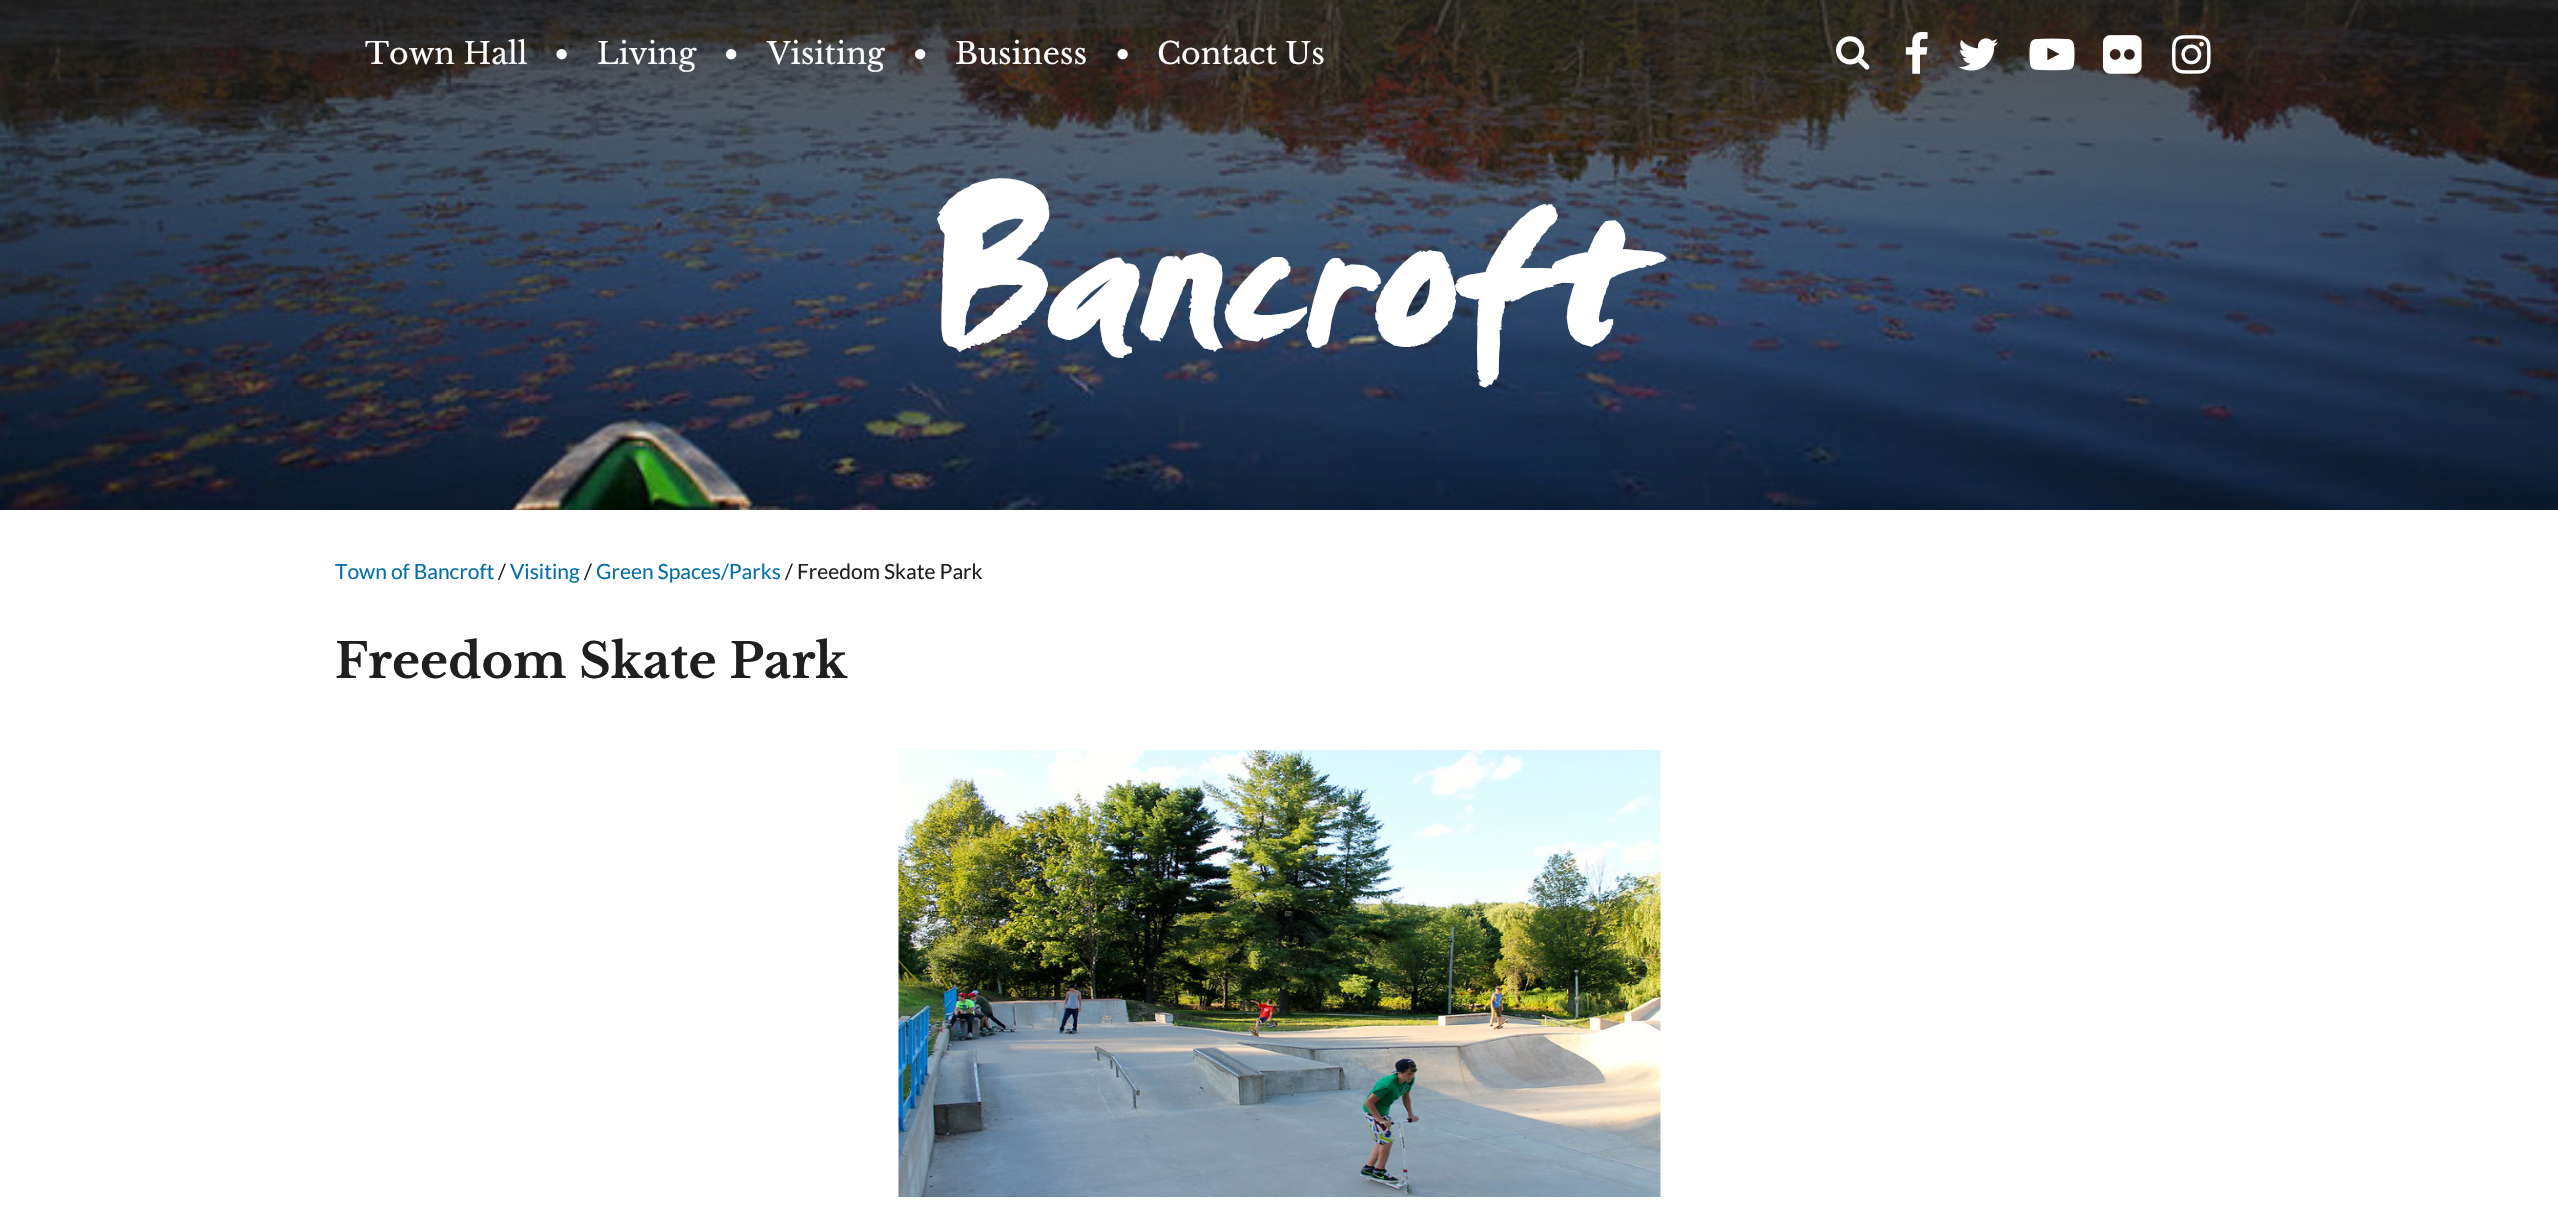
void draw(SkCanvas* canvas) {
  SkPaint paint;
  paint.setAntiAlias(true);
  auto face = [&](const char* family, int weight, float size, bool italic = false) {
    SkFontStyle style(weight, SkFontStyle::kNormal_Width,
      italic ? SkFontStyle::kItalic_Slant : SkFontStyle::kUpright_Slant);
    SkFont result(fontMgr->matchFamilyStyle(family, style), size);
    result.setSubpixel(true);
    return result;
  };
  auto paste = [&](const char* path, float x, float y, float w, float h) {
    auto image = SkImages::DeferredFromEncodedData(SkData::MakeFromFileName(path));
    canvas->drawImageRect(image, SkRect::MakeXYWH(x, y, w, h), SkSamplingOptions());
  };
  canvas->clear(0xffffffff);
  paste("img/1.png", 0, 0, 2558, 510);
  paste("img/2.png", 556, 49, 11, 11);
  paste("img/3.png", 726, 49, 11, 11);
  paste("img/4.png", 915, 49, 11, 11);
  paste("img/5.png", 1117, 49, 11, 11);
  paste("img/6.png", 1836, 36, 34, 34);
  paste("img/7.png", 1905, 31, 23, 43);
  paste("img/8.png", 1958, 38, 40, 33);
  paste("img/9.png", 2029, 38, 46, 33);
  paste("img/10.png", 2103, 35, 39, 39);
  paste("img/11.png", 2172, 35, 39, 39);
  paste("img/12.png", 898, 750, 763, 447);
  auto f0 = face("Libre Baskerville", 400, 30);
  paint.setColor(0xffffffff);
  {
    const struct { const char* s; float x, y; } items[] = {
      {"Town Hall", 365, 64},
      {"Living", 597, 64},
      {"Visiting", 767, 64},
      {"Business", 955, 64},
      {"Contact Us", 1157, 64},
    };
    for (auto [s, x, y] : items) {
      canvas->drawString(s, x, y, f0, paint);
    }
  }
  auto f1 = face("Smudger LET", 700, 216);
  canvas->drawString("Bancroft", 926, 336, f1, paint);
  auto f2 = face("Lato", 400, 21);
  paint.setColor(0xff036fa5);
  canvas->drawString("Town of Bancroft", 335, 579, f2, paint);
  paint.setColor(0xff1f1f1f);
  canvas->drawString("/", 498, 579, f2, paint);
  paint.setColor(0xff036fa5);
  canvas->drawString("Visiting", 510, 579, f2, paint);
  paint.setColor(0xff1f1f1f);
  canvas->drawString("/", 584, 579, f2, paint);
  paint.setColor(0xff036fa5);
  canvas->drawString("Green Spaces/Parks", 596, 579, f2, paint);
  paint.setColor(0xff1f1f1f);
  canvas->drawString("/ Freedom Skate Park", 785, 579, f2, paint);
  auto f3 = face("Libre Baskerville", 700, 48);
  canvas->drawString("Freedom Skate Park", 335, 678, f3, paint);
}
